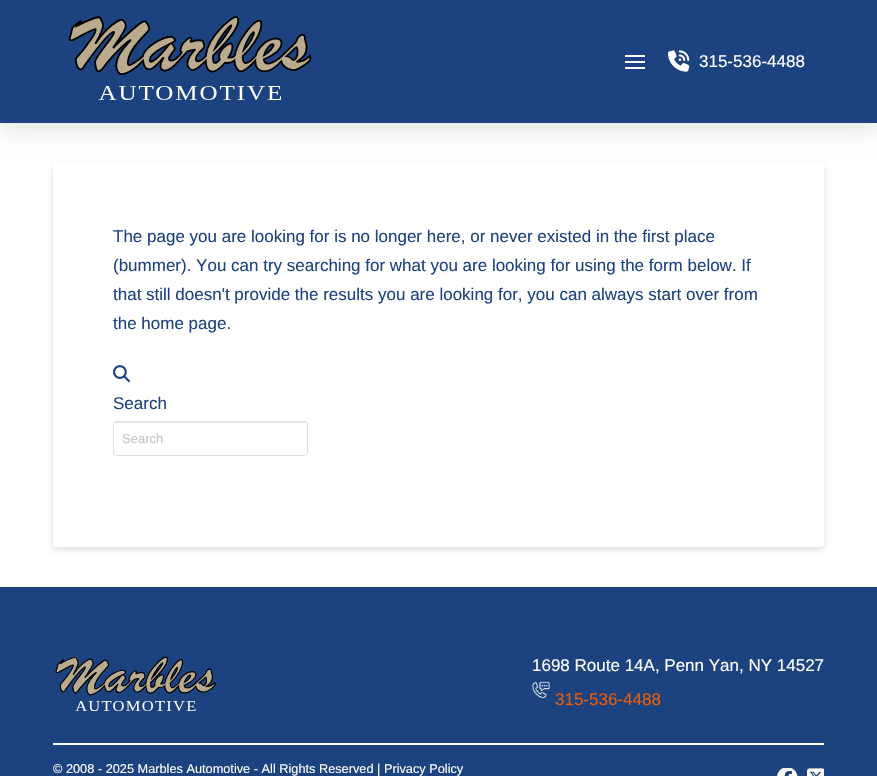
void draw(SkCanvas* canvas) {
  SkPaint paint;
  paint.setAntiAlias(true);
  auto face = [&](const char* family, int weight, float size, bool italic = false) {
    SkFontStyle style(weight, SkFontStyle::kNormal_Width,
      italic ? SkFontStyle::kItalic_Slant : SkFontStyle::kUpright_Slant);
    SkFont result(fontMgr->matchFamilyStyle(family, style), size);
    result.setSubpixel(true);
    return result;
  };
  auto paste = [&](const char* path, float x, float y, float w, float h) {
    auto image = SkImages::DeferredFromEncodedData(SkData::MakeFromFileName(path));
    canvas->drawImageRect(image, SkRect::MakeXYWH(x, y, w, h), SkSamplingOptions());
  };
  auto shape = [&](const char* data, bool evenOdd = false) {
    SkPath result = *SkParsePath::FromSVGString(data);
    if (evenOdd) result.setFillType(SkPathFillType::kEvenOdd);
    return result;
  };
  canvas->clear(0xffffffff);
  paint.setColor(0x21000000);
  paint.setMaskFilter(SkMaskFilter::MakeBlur(kNormal_SkBlurStyle, 3));
  canvas->drawRoundRect(SkRect::MakeXYWH(53, 166, 771, 384), 4, 4, paint);
  paint.setMaskFilter(nullptr);
  paint.setColor(0xffffffff);
  canvas->drawRoundRect(SkRect::MakeXYWH(53, 163, 771, 384), 4, 4, paint);
  paint.setColor(0x26000000);
  paint.setMaskFilter(SkMaskFilter::MakeBlur(kNormal_SkBlurStyle, 12.5f));
  canvas->drawRect(SkRect::MakeXYWH(0, 3, 877, 123), paint);
  paint.setMaskFilter(nullptr);
  paint.setColor(0xff1c4280);
  canvas->drawRect(SkRect::MakeXYWH(0, 0, 877, 123), paint);
  paste("img/1.png", 68, 16, 244, 84);
  {
    const struct { float x, y, w, h; SkColor color; } items[] = {
      {625, 55, 20, 2, 0xffffffff},
      {625, 61, 20, 2, 0xffffffff},
      {625, 67, 20, 2, 0xffffffff},
    };
    for (auto [x, y, w, h, color] : items) {
      paint.setColor(color);
      canvas->drawRect(SkRect::MakeXYWH(x, y, w, h), paint);
    }
  }
  paste("img/2.png", 668, 50, 22, 22);
  paste("img/3.png", 113, 365, 17, 18);
  paint.setColor(0xffececec);
  canvas->drawPath(shape("M117 423H304C306 423 307 424 307 426C307 424 306 422 304 422H117C115 422 114 424 114 426C114 424 115 423 117 423Z"), paint);
  paint.setStroke(true);
  paint.setStrokeWidth(1);
  paint.setColor(0xffdddddd);
  canvas->drawRoundRect(SkRect::MakeXYWH(113.5f, 421.5f, 194, 34), 3.5f, 3.5f, paint);
  paint.setStroke(false);
  paint.setColor(0xff1c4280);
  canvas->drawRect(SkRect::MakeXYWH(0, 587, 877, 189), paint);
  paste("img/4.png", 55, 656, 161, 55);
  paste("img/5.png", 532, 681, 18, 18);
  paint.setColor(0xffffffff);
  canvas->drawRect(SkRect::MakeXYWH(53, 743, 771, 2), paint);
  paste("img/6.png", 777, 768, 21, 8);
  paste("img/7.png", 807, 768, 17, 8);
  auto f0 = face("Liberation Sans", 400, 17);
  canvas->drawString("315-536-4488", 699, 67, f0, paint);
  paint.setColor(0xff1c4280);
  {
    const struct { const char* s; float x, y; } items[] = {
      {"The page you are looking for is no longer here, or never existed in the first place", 113, 242},
      {"(bummer). You can try searching for what you are looking for using the form below. If", 113, 271},
      {"that still doesn't provide the results you are looking for, you can always start over from", 113, 300},
      {"the home page.", 113, 329},
      {"Search", 113, 409},
    };
    for (auto [s, x, y] : items) {
      canvas->drawString(s, x, y, f0, paint);
    }
  }
  auto f1 = face("Liberation Sans", 400, 13);
  paint.setColor(0xffc5c5c5);
  canvas->drawString("Search", 122, 443, f1, paint);
  paint.setColor(0xffffffff);
  canvas->drawString("1698 Route 14A, Penn Yan, NY 14527", 532, 671, f0, paint);
  paint.setColor(0xfff25b03);
  canvas->drawString("315-536-4488", 555, 705, f0, paint);
  auto f2 = face("Liberation Sans", 400, 12.75f);
  paint.setColor(0xffffffff);
  canvas->drawString("© 2008 - 2025 Marbles Automotive - All Rights Reserved | Privacy Policy", 53, 773, f2, paint);
}
